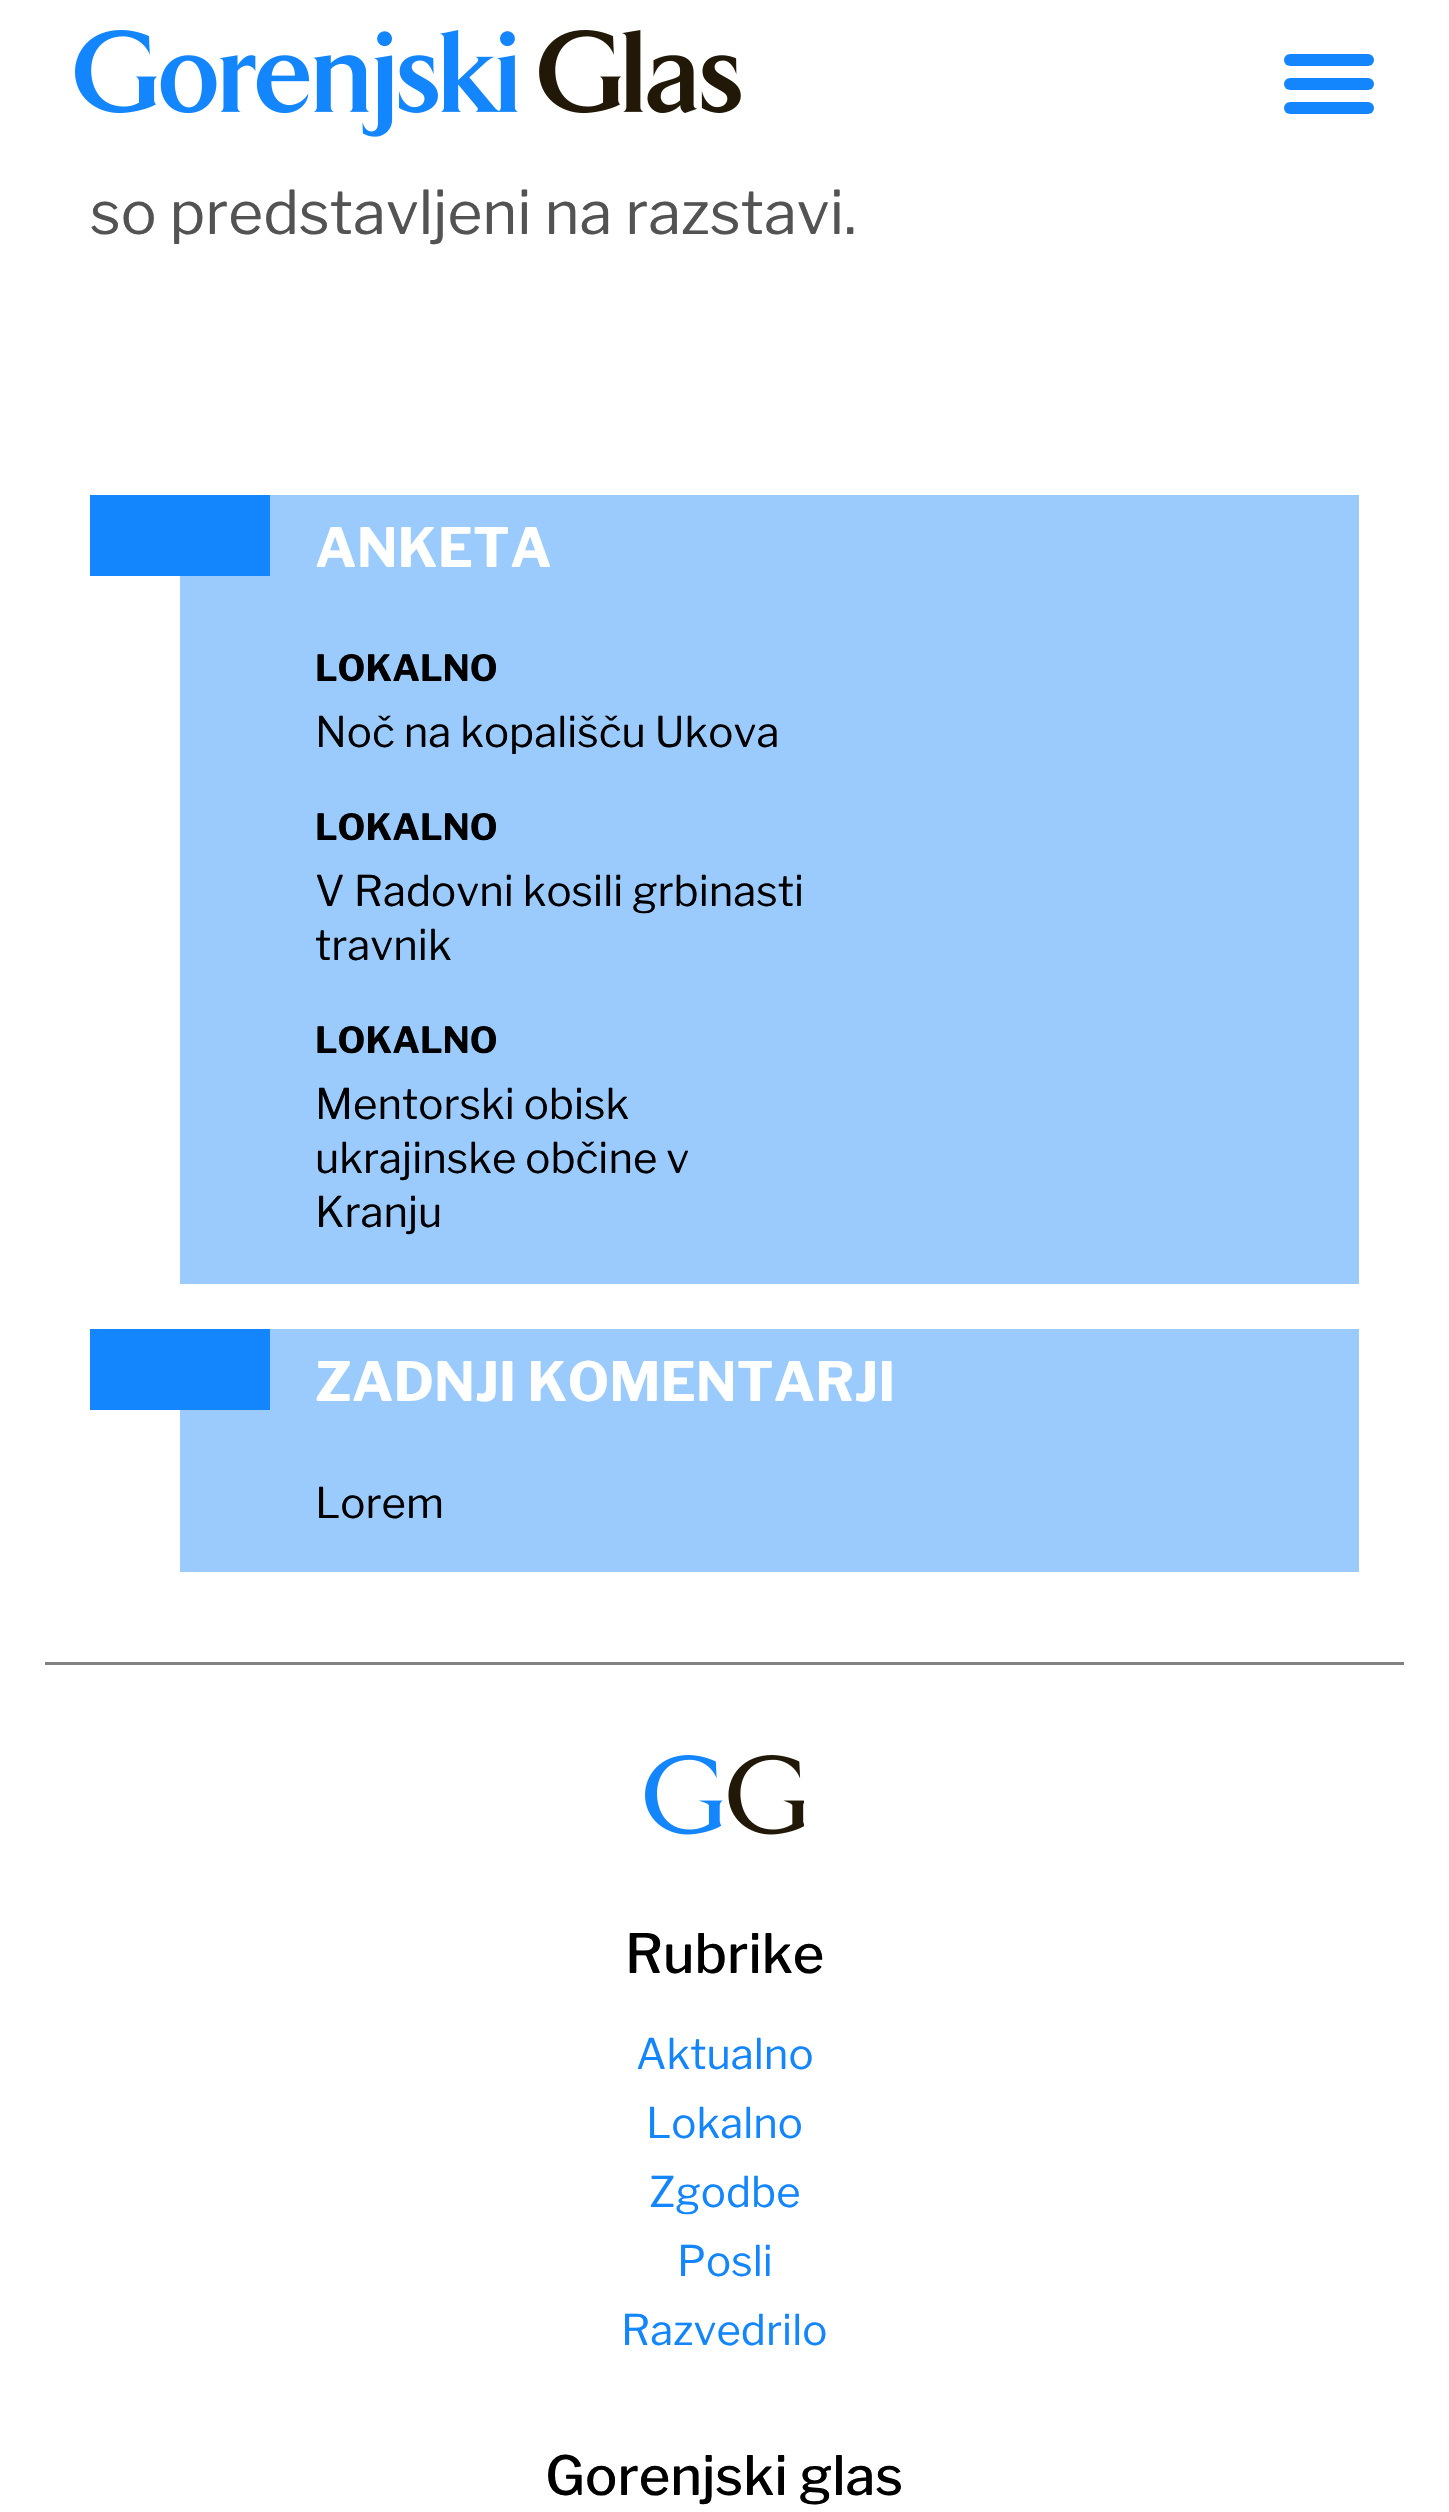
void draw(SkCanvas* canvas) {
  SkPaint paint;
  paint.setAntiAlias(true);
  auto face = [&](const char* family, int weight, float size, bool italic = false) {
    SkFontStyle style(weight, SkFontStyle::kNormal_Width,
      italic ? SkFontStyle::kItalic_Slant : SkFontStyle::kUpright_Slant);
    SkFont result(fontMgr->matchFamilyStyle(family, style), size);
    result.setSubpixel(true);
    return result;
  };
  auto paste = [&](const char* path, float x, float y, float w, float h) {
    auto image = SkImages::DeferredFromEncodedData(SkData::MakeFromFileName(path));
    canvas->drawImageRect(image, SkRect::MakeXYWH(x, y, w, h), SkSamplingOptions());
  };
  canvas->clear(0xffffffff);
  paste("img/1.png", 75, 30, 666, 107);
  paint.setColor(0xff1385fd);
  canvas->drawRoundRect(SkRect::MakeXYWH(1284, 78, 90, 12), 6, 6, paint);
  canvas->drawRoundRect(SkRect::MakeXYWH(1284, 54, 90, 12), 6, 6, paint);
  canvas->drawRoundRect(SkRect::MakeXYWH(1284, 102, 90, 12), 6, 6, paint);
  {
    const struct { float x, y, w, h; SkColor color; } items[] = {
      {180, 495, 1179, 789, 0xff9bcafc},
      {90, 495, 180, 81, 0xff1385fd},
      {180, 1329, 1179, 243, 0xff9bcafc},
      {90, 1329, 180, 81, 0xff1385fd},
      {45, 1662, 1359, 3, 0xff808080},
    };
    for (auto [x, y, w, h, color] : items) {
      paint.setColor(color);
      canvas->drawRect(SkRect::MakeXYWH(x, y, w, h), paint);
    }
  }
  paste("img/2.png", 645, 1755, 159, 80);
  auto f0 = face("Libre Franklin", 400, 60);
  paint.setColor(0xff535353);
  canvas->drawString("so predstavljeni na razstavi.", 90, 234, f0, paint);
  auto f1 = face("Libre Franklin", 700, 54);
  paint.setColor(0xffffffff);
  canvas->drawString("ANKETA", 315, 567, f1, paint);
  auto f2 = face("Libre Franklin", 700, 36);
  paint.setColor(0xff000000);
  canvas->drawString("LOKALNO", 315, 681, f2, paint);
  auto f3 = face("Libre Franklin", 400, 42);
  canvas->drawString("Noč na kopališču Ukova", 315, 747, f3, paint);
  canvas->drawString("LOKALNO", 315, 840, f2, paint);
  canvas->drawString("V Radovni kosili grbinasti", 315, 906, f3, paint);
  canvas->drawString("travnik", 315, 960, f3, paint);
  canvas->drawString("LOKALNO", 315, 1053, f2, paint);
  {
    const struct { const char* s; float x, y; } items[] = {
      {"Mentorski obisk", 315, 1119},
      {"ukrajinske občine v", 315, 1173},
      {"Kranju", 315, 1227},
    };
    for (auto [s, x, y] : items) {
      canvas->drawString(s, x, y, f3, paint);
    }
  }
  paint.setColor(0xffffffff);
  canvas->drawString("ZADNJI KOMENTARJI", 315, 1401, f1, paint);
  paint.setColor(0xff000000);
  canvas->drawString("Lorem", 315, 1518, f3, paint);
  auto f4 = face("Libre Franklin", 500, 54);
  canvas->drawString("Rubrike", 625, 1973, f4, paint);
  paint.setColor(0xff1385fd);
  {
    const struct { const char* s; float x, y; } items[] = {
      {"Aktualno", 636, 2069},
      {"Lokalno", 646, 2138},
      {"Zgodbe", 649, 2207},
      {"Posli", 677, 2276},
      {"Razvedrilo", 621, 2345},
    };
    for (auto [s, x, y] : items) {
      canvas->drawString(s, x, y, f3, paint);
    }
  }
  paint.setColor(0xff000000);
  canvas->drawString("Gorenjski glas", 545, 2495, f4, paint);
}
